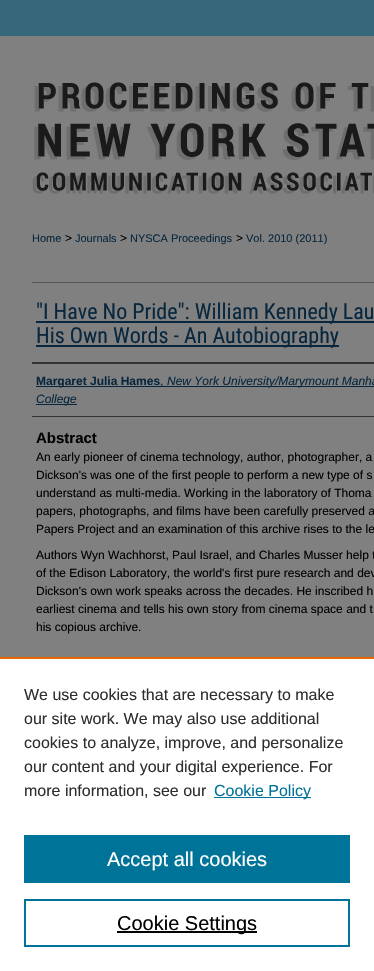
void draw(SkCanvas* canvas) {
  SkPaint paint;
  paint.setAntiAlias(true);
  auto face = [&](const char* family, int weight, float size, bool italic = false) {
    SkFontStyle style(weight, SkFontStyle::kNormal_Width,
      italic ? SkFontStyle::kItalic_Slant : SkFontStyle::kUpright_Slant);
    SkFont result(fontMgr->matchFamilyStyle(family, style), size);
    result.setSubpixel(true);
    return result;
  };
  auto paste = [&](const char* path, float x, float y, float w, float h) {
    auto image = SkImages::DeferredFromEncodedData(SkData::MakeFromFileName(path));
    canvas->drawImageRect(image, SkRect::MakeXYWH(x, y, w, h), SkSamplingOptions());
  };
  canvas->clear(0xff376879);
  paste("img/1.png", 0, 36, 374, 158);
  {
    const struct { float x, y, w, h; SkColor color; } items[] = {
      {0, 194, 374, 463, 0xff808080},
      {32, 282, 342, 1, 0xff555555},
      {36, 321, 338, 2, 0xff08273e},
      {36, 345, 303, 2, 0xff08273e},
      {32, 362, 342, 2, 0xff333333},
      {32, 416, 342, 1, 0xff333333},
      {36, 386, 338, 1, 0xff08273e},
      {36, 404, 41, 1, 0xff08273e},
      {0, 659, 374, 312, 0xffffffff},
      {0, 657, 374, 2, 0xffeb6500},
      {214, 797, 97, 1, 0xff007398},
      {24, 835, 326, 48, 0xff007398},
    };
    for (auto [x, y, w, h, color] : items) {
      paint.setColor(color);
      canvas->drawRect(SkRect::MakeXYWH(x, y, w, h), paint);
    }
  }
  paint.setStroke(true);
  paint.setStrokeWidth(2);
  canvas->drawRect(SkRect::MakeXYWH(25, 900, 324, 46), paint);
  paint.setStroke(false);
  paint.setColor(0xff000000);
  canvas->drawRect(SkRect::MakeXYWH(117, 931, 140, 2), paint);
  auto f0 = face("Liberation Sans", 400, 11);
  paint.setColor(0xff08273e);
  canvas->drawString("Home", 32, 242, f0, paint);
  auto f1 = face("Liberation Sans", 400, 12);
  paint.setColor(0xff000000);
  canvas->drawString(">", 65, 242, f1, paint);
  paint.setColor(0xff08273e);
  canvas->drawString("Journals", 75, 242, f0, paint);
  paint.setColor(0xff000000);
  canvas->drawString(">", 120, 242, f1, paint);
  paint.setColor(0xff08273e);
  canvas->drawString("NYSCA Proceedings", 130, 242, f0, paint);
  paint.setColor(0xff000000);
  canvas->drawString(">", 236, 242, f1, paint);
  paint.setColor(0xff08273e);
  canvas->drawString("Vol. 2010 (2011)", 246, 242, f0, paint);
  auto f2 = face("Roboto Condensed", 400, 22);
  canvas->drawString("\"I Have No Pride\": William Kennedy Lau", 36, 319, f2, paint);
  canvas->drawString("His Own Words - An Autobiography", 36, 343, f2, paint);
  auto f3 = face("Liberation Sans", 700, 12);
  canvas->drawString("Margaret Julia Hames", 36, 385, f3, paint);
  canvas->drawString(",", 160, 385, f1, paint);
  auto f4 = face("Liberation Sans", 400, 12, true);
  canvas->drawString("New York University/Marymount Manha", 167, 385, f4, paint);
  canvas->drawString("College", 36, 403, f4, paint);
  auto f5 = face("Liberation Sans", 700, 15);
  paint.setColor(0xff000000);
  canvas->drawString("Abstract", 36, 443, f5, paint);
  {
    const struct { const char* s; float x, y; } items[] = {
      {"An early pioneer of cinema technology, author, photographer, a", 36, 461},
      {"Dickson's was one of the first people to perform a new type of s", 36, 479},
      {"understand as multi-media. Working in the laboratory of Thoma", 36, 497},
      {"papers, photographs, and films have been carefully preserved a", 36, 515},
      {"Papers Project and an examination of this archive rises to the le", 36, 533},
      {"Authors Wyn Wachhorst, Paul Israel, and Charles Musser help t", 36, 559},
      {"of the Edison Laboratory, the world's first pure research and dev", 36, 577},
      {"Dickson's own work speaks across the decades. He inscribed h", 36, 595},
      {"earliest cinema and tells his own story from cinema space and t", 36, 613},
      {"his copious archive.", 36, 631},
    };
    for (auto [s, x, y] : items) {
      canvas->drawString(s, x, y, f1, paint);
    }
  }
  auto f6 = face("Liberation Sans", 400, 16);
  paint.setColor(0xff2e2e2e);
  {
    const struct { const char* s; float x, y; } items[] = {
      {"We use cookies that are necessary to make", 24, 700},
      {"our site work. We may also use additional", 24, 724},
      {"cookies to analyze, improve, and personalize", 24, 748},
      {"our content and your digital experience. For", 24, 772},
      {"more information, see our", 24, 796},
    };
    for (auto [s, x, y] : items) {
      canvas->drawString(s, x, y, f6, paint);
    }
  }
  paint.setColor(0xff007398);
  canvas->drawString("Cookie Policy", 214, 796, f6, paint);
  auto f7 = face("Liberation Sans", 400, 20);
  paint.setColor(0xffffffff);
  canvas->drawString("Accept all cookies", 107, 866, f7, paint);
  paint.setColor(0xff000000);
  canvas->drawString("Cookie Settings", 117, 930, f7, paint);
}
